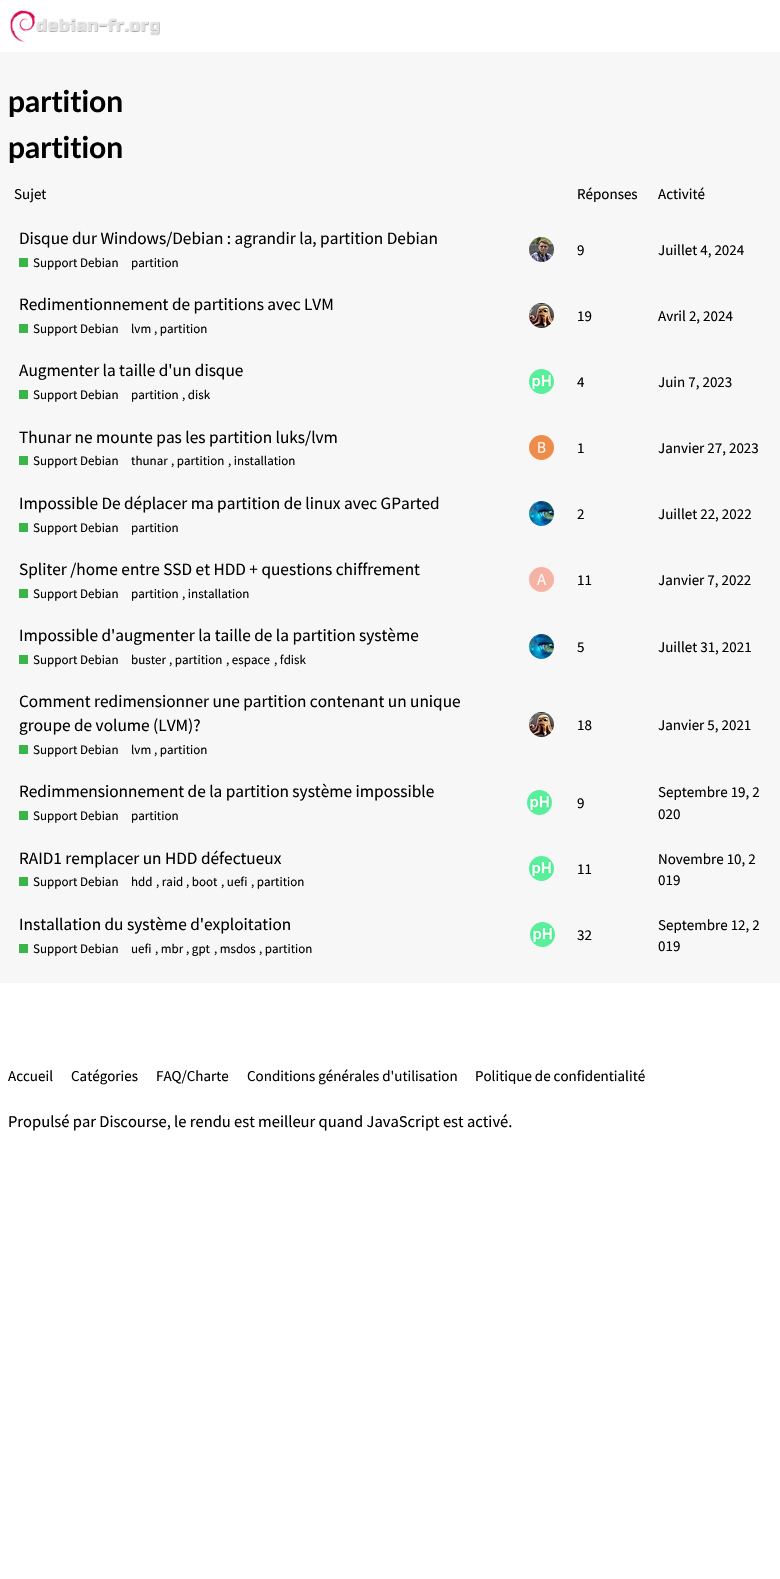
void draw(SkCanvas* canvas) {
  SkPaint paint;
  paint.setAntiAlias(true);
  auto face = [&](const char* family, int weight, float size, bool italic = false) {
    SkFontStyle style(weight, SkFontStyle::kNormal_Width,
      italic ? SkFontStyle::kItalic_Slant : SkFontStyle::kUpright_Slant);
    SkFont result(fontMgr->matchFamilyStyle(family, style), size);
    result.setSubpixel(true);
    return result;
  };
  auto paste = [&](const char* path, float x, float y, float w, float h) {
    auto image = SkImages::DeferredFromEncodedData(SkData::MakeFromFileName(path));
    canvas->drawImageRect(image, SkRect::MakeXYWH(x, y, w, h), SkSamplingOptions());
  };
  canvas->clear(0xffffffff);
  paste("img/1.png", 10, 10, 150, 32);
  paint.setColor(0xfff7f7f7);
  canvas->drawRect(SkRect::MakeXYWH(0, 52, 780, 931), paint);
  paint.setColor(0xff3ab54a);
  canvas->drawRect(SkRect::MakeXYWH(19, 258, 9, 9), paint);
  paste("img/2.png", 529, 237, 25, 25);
  canvas->drawRect(SkRect::MakeXYWH(19, 324, 9, 9), paint);
  paste("img/3.png", 529, 303, 25, 25);
  canvas->drawRect(SkRect::MakeXYWH(19, 390, 9, 9), paint);
  paste("img/4.png", 529, 369, 25, 25);
  canvas->drawRect(SkRect::MakeXYWH(19, 456, 9, 9), paint);
  paste("img/5.png", 529, 435, 25, 25);
  canvas->drawRect(SkRect::MakeXYWH(19, 523, 9, 9), paint);
  paste("img/6.png", 529, 501, 25, 25);
  canvas->drawRect(SkRect::MakeXYWH(19, 589, 9, 9), paint);
  paste("img/7.png", 529, 567, 25, 25);
  canvas->drawRect(SkRect::MakeXYWH(19, 655, 9, 9), paint);
  paste("img/8.png", 529, 634, 25, 25);
  canvas->drawRect(SkRect::MakeXYWH(19, 745, 9, 9), paint);
  paste("img/3.png", 529, 712, 25, 25);
  canvas->drawRect(SkRect::MakeXYWH(19, 811, 9, 9), paint);
  paste("img/4.png", 527, 790, 25, 25);
  canvas->drawRect(SkRect::MakeXYWH(19, 877, 9, 9), paint);
  paste("img/4.png", 529, 856, 25, 25);
  canvas->drawRect(SkRect::MakeXYWH(19, 944, 9, 9), paint);
  paste("img/9.png", 530, 922, 25, 25);
  auto f0 = face("Lato", 700, 30);
  paint.setColor(0xff000000);
  canvas->drawString("partition", 8, 112, f0, paint);
  canvas->drawString("partition", 8, 158, f0, paint);
  auto f1 = face("Source Sans Pro", 400, 15);
  {
    const struct { const char* s; float x, y; } items[] = {
      {"Sujet", 14, 199},
      {"Réponses", 577, 199},
      {"Activité", 658, 199},
    };
    for (auto [s, x, y] : items) {
      canvas->drawString(s, x, y, f1, paint);
    }
  }
  auto f2 = face("Source Sans Pro", 400, 17.25f);
  canvas->drawString("Disque dur Windows/Debian : agrandir la, partition Debian", 19, 244, f2, paint);
  auto f3 = face("Source Sans Pro", 400, 13);
  canvas->drawString("Support Debian", 33, 267, f3, paint);
  canvas->drawString("partition", 131, 267, f3, paint);
  canvas->drawString("9", 577, 255, f1, paint);
  canvas->drawString("Juillet 4, 2024", 658, 255, f1, paint);
  canvas->drawString("Redimentionnement de partitions avec LVM", 19, 310, f2, paint);
  {
    const struct { const char* s; float x, y; } items[] = {
      {"Support Debian", 33, 333},
      {"lvm", 131, 333},
      {", partition", 154, 333},
    };
    for (auto [s, x, y] : items) {
      canvas->drawString(s, x, y, f3, paint);
    }
  }
  canvas->drawString("19", 577, 321, f1, paint);
  canvas->drawString("Avril 2, 2024", 658, 321, f1, paint);
  canvas->drawString("Augmenter la taille d'un disque", 19, 376, f2, paint);
  {
    const struct { const char* s; float x, y; } items[] = {
      {"Support Debian", 33, 399},
      {"partition", 131, 399},
      {", disk", 182, 399},
    };
    for (auto [s, x, y] : items) {
      canvas->drawString(s, x, y, f3, paint);
    }
  }
  canvas->drawString("4", 577, 387, f1, paint);
  canvas->drawString("Juin 7, 2023", 658, 387, f1, paint);
  canvas->drawString("Thunar ne mounte pas les partition luks/lvm", 19, 443, f2, paint);
  {
    const struct { const char* s; float x, y; } items[] = {
      {"Support Debian", 33, 465},
      {"thunar", 131, 465},
      {", partition", 171, 465},
      {", installation", 228, 465},
    };
    for (auto [s, x, y] : items) {
      canvas->drawString(s, x, y, f3, paint);
    }
  }
  canvas->drawString("1", 577, 453, f1, paint);
  canvas->drawString("Janvier 27, 2023", 658, 453, f1, paint);
  canvas->drawString("Impossible De déplacer ma partition de linux avec GParted", 19, 509, f2, paint);
  canvas->drawString("Support Debian", 33, 532, f3, paint);
  canvas->drawString("partition", 131, 532, f3, paint);
  canvas->drawString("2", 577, 519, f1, paint);
  canvas->drawString("Juillet 22, 2022", 658, 519, f1, paint);
  canvas->drawString("Spliter /home entre SSD et HDD + questions chiffrement", 19, 575, f2, paint);
  {
    const struct { const char* s; float x, y; } items[] = {
      {"Support Debian", 33, 598},
      {"partition", 131, 598},
      {", installation", 182, 598},
    };
    for (auto [s, x, y] : items) {
      canvas->drawString(s, x, y, f3, paint);
    }
  }
  canvas->drawString("11", 577, 585, f1, paint);
  canvas->drawString("Janvier 7, 2022", 658, 585, f1, paint);
  canvas->drawString("Impossible d'augmenter la taille de la partition système", 19, 641, f2, paint);
  {
    const struct { const char* s; float x, y; } items[] = {
      {"Support Debian", 33, 664},
      {"buster", 131, 664},
      {", partition", 169, 664},
      {", espace", 226, 664},
      {", fdisk", 274, 664},
    };
    for (auto [s, x, y] : items) {
      canvas->drawString(s, x, y, f3, paint);
    }
  }
  canvas->drawString("5", 577, 652, f1, paint);
  canvas->drawString("Juillet 31, 2021", 658, 652, f1, paint);
  canvas->drawString("Comment redimensionner une partition contenant un unique", 19, 707, f2, paint);
  canvas->drawString("groupe de volume (LVM)?", 19, 731, f2, paint);
  {
    const struct { const char* s; float x, y; } items[] = {
      {"Support Debian", 33, 754},
      {"lvm", 131, 754},
      {", partition", 154, 754},
    };
    for (auto [s, x, y] : items) {
      canvas->drawString(s, x, y, f3, paint);
    }
  }
  canvas->drawString("18", 577, 730, f1, paint);
  canvas->drawString("Janvier 5, 2021", 658, 730, f1, paint);
  canvas->drawString("Redimmensionnement de la partition système impossible", 19, 797, f2, paint);
  canvas->drawString("Support Debian", 33, 820, f3, paint);
  canvas->drawString("partition", 131, 820, f3, paint);
  {
    const struct { const char* s; float x, y; } items[] = {
      {"9", 577, 808},
      {"Septembre 19, 2", 658, 797},
      {"020", 658, 819},
    };
    for (auto [s, x, y] : items) {
      canvas->drawString(s, x, y, f1, paint);
    }
  }
  canvas->drawString("RAID1 remplacer un HDD défectueux", 19, 864, f2, paint);
  {
    const struct { const char* s; float x, y; } items[] = {
      {"Support Debian", 33, 886},
      {"hdd", 131, 886},
      {", raid", 156, 886},
      {", boot", 186, 886},
      {", uefi", 221, 886},
      {", partition", 251, 886},
    };
    for (auto [s, x, y] : items) {
      canvas->drawString(s, x, y, f3, paint);
    }
  }
  {
    const struct { const char* s; float x, y; } items[] = {
      {"11", 577, 874},
      {"Novembre 10, 2", 658, 864},
      {"019", 658, 885},
    };
    for (auto [s, x, y] : items) {
      canvas->drawString(s, x, y, f1, paint);
    }
  }
  canvas->drawString("Installation du système d'exploitation", 19, 930, f2, paint);
  {
    const struct { const char* s; float x, y; } items[] = {
      {"Support Debian", 33, 953},
      {"uefi", 131, 953},
      {", mbr", 155, 953},
      {", gpt", 186, 953},
      {", msdos", 214, 953},
      {", partition", 259, 953},
    };
    for (auto [s, x, y] : items) {
      canvas->drawString(s, x, y, f3, paint);
    }
  }
  {
    const struct { const char* s; float x, y; } items[] = {
      {"32", 577, 940},
      {"Septembre 12, 2", 658, 930},
      {"019", 658, 951},
      {"Accueil", 8, 1081},
      {"Catégories", 71, 1081},
      {"FAQ/Charte", 156, 1081},
      {"Conditions générales d'utilisation", 247, 1081},
      {"Politique de confidentialité", 475, 1081},
    };
    for (auto [s, x, y] : items) {
      canvas->drawString(s, x, y, f1, paint);
    }
  }
  auto f4 = face("Source Sans Pro", 400, 16.5f);
  canvas->drawString("Propulsé par Discourse, le rendu est meilleur quand JavaScript est activé.", 8, 1127, f4, paint);
}
